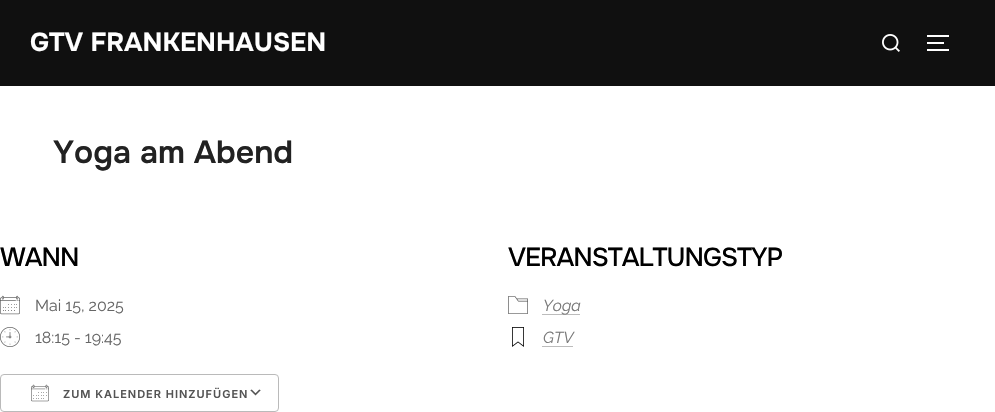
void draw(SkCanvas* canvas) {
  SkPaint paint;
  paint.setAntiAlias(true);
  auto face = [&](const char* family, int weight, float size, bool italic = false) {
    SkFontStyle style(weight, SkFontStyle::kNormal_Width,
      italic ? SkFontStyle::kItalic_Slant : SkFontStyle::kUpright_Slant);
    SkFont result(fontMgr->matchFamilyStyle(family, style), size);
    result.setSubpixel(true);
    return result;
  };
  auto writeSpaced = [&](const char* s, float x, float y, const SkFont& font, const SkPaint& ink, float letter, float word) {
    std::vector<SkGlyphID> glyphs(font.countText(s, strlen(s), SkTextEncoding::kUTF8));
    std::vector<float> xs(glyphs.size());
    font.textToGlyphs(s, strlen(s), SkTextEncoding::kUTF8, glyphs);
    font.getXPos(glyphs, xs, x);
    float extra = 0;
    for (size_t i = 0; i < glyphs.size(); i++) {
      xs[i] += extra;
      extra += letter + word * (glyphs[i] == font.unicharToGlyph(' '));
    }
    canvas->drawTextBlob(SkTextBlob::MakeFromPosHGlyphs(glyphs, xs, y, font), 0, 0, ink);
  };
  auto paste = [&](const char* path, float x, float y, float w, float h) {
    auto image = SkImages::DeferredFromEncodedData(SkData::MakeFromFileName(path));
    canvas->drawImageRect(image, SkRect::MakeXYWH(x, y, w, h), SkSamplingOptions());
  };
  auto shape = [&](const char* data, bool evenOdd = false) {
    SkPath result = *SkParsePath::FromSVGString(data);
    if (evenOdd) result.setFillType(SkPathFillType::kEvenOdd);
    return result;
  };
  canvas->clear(0xffffffff);
  paint.setColor(0xff101010);
  canvas->drawRect(SkRect::MakeXYWH(0, 0, 995, 86), paint);
  paste("img/1.png", 882, 34, 18, 18);
  {
    const struct { float x, y, w, h; SkColor color; } items[] = {
      {927, 35, 22, 2, 0xffffffff},
      {927, 42, 17, 2, 0xffffffff},
      {927, 49, 22, 2, 0xffffffff},
    };
    for (auto [x, y, w, h, color] : items) {
      paint.setColor(color);
      canvas->drawRect(SkRect::MakeXYWH(x, y, w, h), paint);
    }
  }
  paste("img/2.png", 0, 295, 20, 20);
  paste("img/3.png", 0, 327, 20, 20);
  paste("img/4.png", 250, 389, 11, 7);
  paint.setStroke(true);
  paint.setStrokeWidth(1);
  paint.setColor(0xffbababa);
  canvas->drawRoundRect(SkRect::MakeXYWH(0.5f, 374.5f, 278, 37), 3.5f, 3.5f, paint);
  paste("img/5.png", 31, 384, 18, 18);
  paste("img/6.png", 508, 296, 20, 18);
  paint.setColor(0xff787878);
  paint.setPathEffect(SkDashPathEffect::Make({{1, 1}}, 0));
  canvas->drawPath(shape("M542.5 314.5H580.5"), paint);
  paint.setPathEffect(nullptr);
  paste("img/7.png", 512, 327, 12, 20);
  paint.setPathEffect(SkDashPathEffect::Make({{1, 1}}, 0));
  canvas->drawPath(shape("M542.5 346.5H573"), paint);
  paint.setPathEffect(nullptr);
  auto f0 = face("Onest", 700, 26);
  paint.setStroke(false);
  paint.setColor(0xffffffff);
  canvas->drawString("GTV FRANKENHAUSEN", 30, 51, f0, paint);
  auto f1 = face("Onest", 600, 32);
  paint.setColor(0xff222222);
  canvas->drawString("Yoga am Abend", 53, 163, f1, paint);
  auto f2 = face("Onest", 500, 26);
  paint.setColor(0xff000000);
  writeSpaced("WANN", 0, 266, f2, paint, -1, 0);
  auto f3 = face("Raleway", 400, 16);
  paint.setColor(0xff666666);
  canvas->drawString("Mai 15, 2025", 35, 311, f3, paint);
  canvas->drawString("18:15 - 19:45", 35, 343, f3, paint);
  auto f4 = face("Inter", 600, 11);
  paint.setColor(0xff545454);
  writeSpaced("ZUM KALENDER HINZUFÜGEN", 63, 398, f4, paint, 1, 0);
  paint.setColor(0xff000000);
  writeSpaced("VERANSTALTUNGSTYP", 508, 266, f2, paint, -1, 0);
  auto f5 = face("Raleway", 400, 16, true);
  paint.setColor(0xff787878);
  canvas->drawString("Yoga", 543, 311, f5, paint);
  canvas->drawString("GTV", 543, 343, f5, paint);
}
